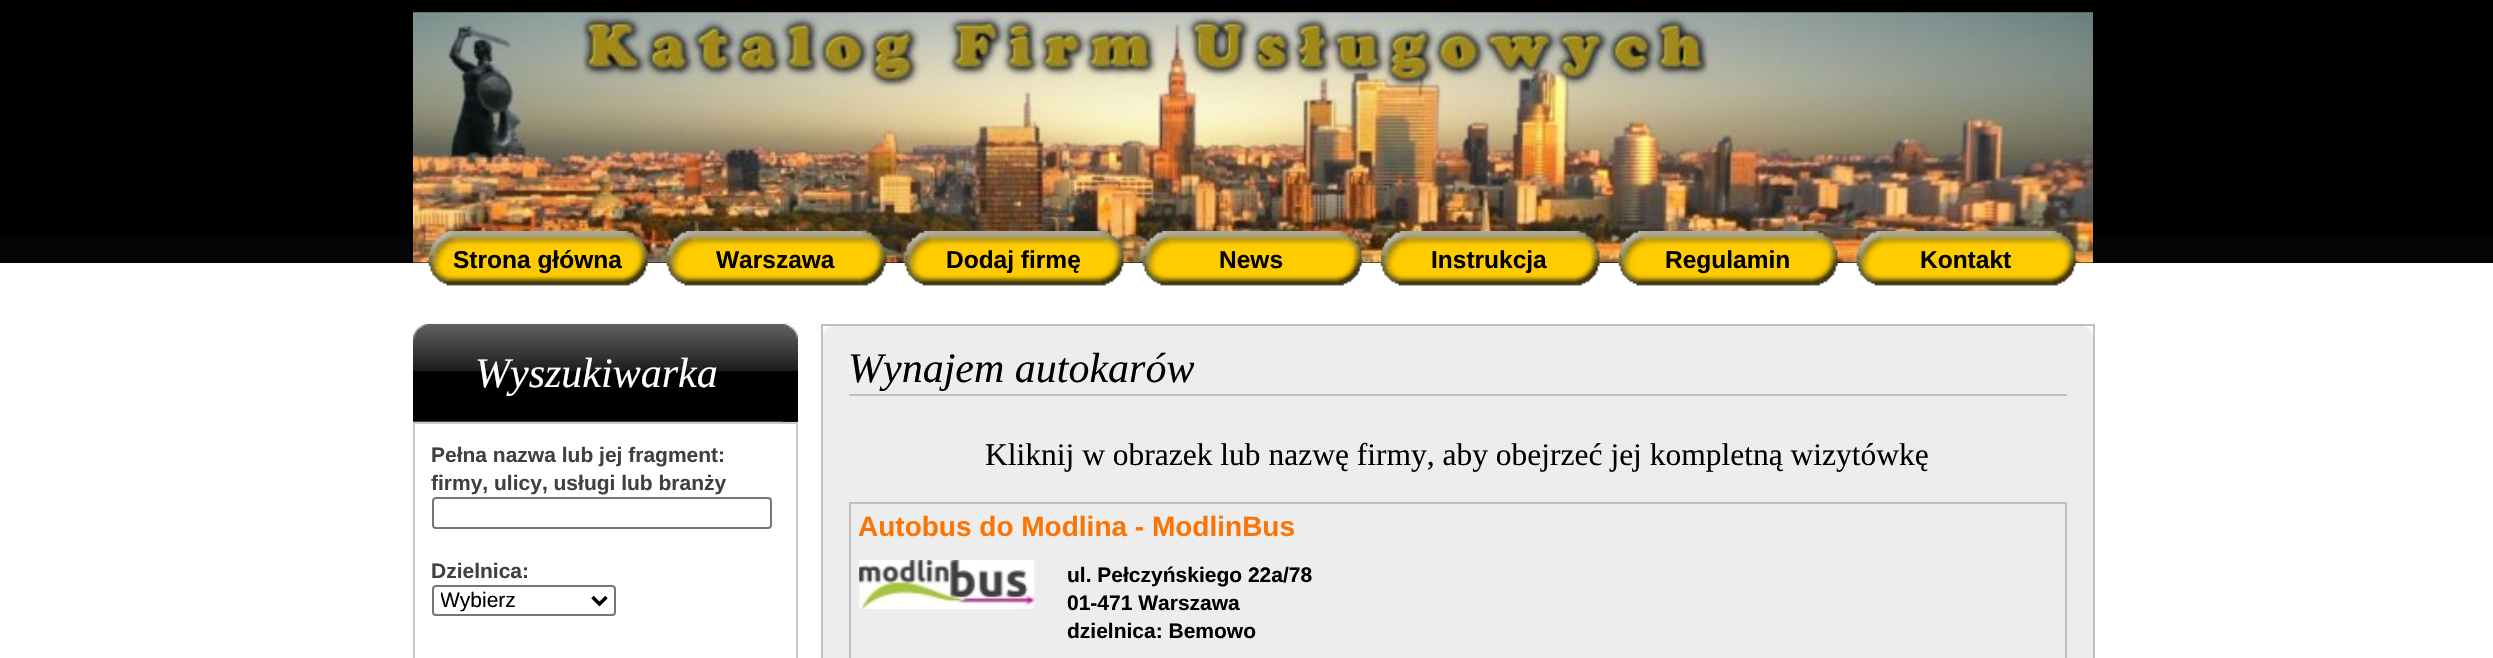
void draw(SkCanvas* canvas) {
  SkPaint paint;
  paint.setAntiAlias(true);
  auto face = [&](const char* family, int weight, float size, bool italic = false) {
    SkFontStyle style(weight, SkFontStyle::kNormal_Width,
      italic ? SkFontStyle::kItalic_Slant : SkFontStyle::kUpright_Slant);
    SkFont result(fontMgr->matchFamilyStyle(family, style), size);
    result.setSubpixel(true);
    return result;
  };
  auto paste = [&](const char* path, float x, float y, float w, float h) {
    auto image = SkImages::DeferredFromEncodedData(SkData::MakeFromFileName(path));
    canvas->drawImageRect(image, SkRect::MakeXYWH(x, y, w, h), SkSamplingOptions());
  };
  auto shape = [&](const char* data, bool evenOdd = false) {
    SkPath result = *SkParsePath::FromSVGString(data);
    if (evenOdd) result.setFillType(SkPathFillType::kEvenOdd);
    return result;
  };
  canvas->clear(0xff000000);
  paste("img/1.png", 0, 235, 2493, 27);
  paste("img/2.png", 413, 12, 1680, 251);
  paint.setColor(0xffffffff);
  canvas->drawRect(SkRect::MakeXYWH(0, 263, 2493, 395), paint);
  paste("img/3.png", 428, 231, 220, 55);
  paste("img/4.png", 666, 231, 220, 55);
  paste("img/5.png", 904, 231, 220, 55);
  paste("img/6.png", 1142, 231, 220, 55);
  paste("img/7.png", 1380, 231, 220, 55);
  paste("img/8.png", 1618, 231, 220, 55);
  paste("img/9.png", 1856, 231, 220, 55);
  paste("img/10.png", 413, 323, 385, 99);
  paste("img/11.png", 782, 323, 16, 99);
  paint.setStroke(true);
  paint.setStrokeWidth(2);
  paint.setColor(0xffcbc9c9);
  canvas->drawRect(SkRect::MakeXYWH(414, 423, 383, 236), paint);
  paint.setColor(0xff767676);
  canvas->drawRoundRect(SkRect::MakeXYWH(433, 498, 338, 30), 3, 3, paint);
  canvas->drawRoundRect(SkRect::MakeXYWH(433, 586, 182, 29), 3, 3, paint);
  paint.setStrokeWidth(3.5f);
  paint.setColor(0xff000000);
  canvas->drawPath(shape("M592.5 597L599.5 604L606.5 597"), paint);
  paint.setStroke(false);
  paint.setColor(0xffededed);
  canvas->drawRect(SkRect::MakeXYWH(823, 326, 1270, 332), paint);
  paste("img/12.png", 820, 324, 16, 15);
  paste("img/13.png", 2081, 326, 12, 11);
  paint.setStroke(true);
  paint.setStrokeWidth(2);
  paint.setColor(0xffc0c0c0);
  canvas->drawRect(SkRect::MakeXYWH(822, 325, 1272, 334), paint);
  paint.setStroke(false);
  {
    const struct { float x, y, w, h; SkColor color; } items[] = {
      {849, 394, 1218, 2, 0xffc0c0c0},
      {849, 502, 1218, 2, 0xffc0c0c0},
      {2065, 502, 2, 156, 0xffc0c0c0},
      {849, 502, 2, 156, 0xffc0c0c0},
    };
    for (auto [x, y, w, h, color] : items) {
      paint.setColor(color);
      canvas->drawRect(SkRect::MakeXYWH(x, y, w, h), paint);
    }
  }
  paste("img/14.png", 859, 560, 176, 49);
  auto f0 = face("Liberation Sans", 700, 24.5f);
  paint.setColor(0xff000000);
  {
    const struct { const char* s; float x, y; } items[] = {
      {"Strona główna", 453, 268},
      {"Warszawa", 716, 268},
      {"Dodaj firmę", 946, 268},
      {"News", 1219, 268},
      {"Instrukcja", 1431, 268},
      {"Regulamin", 1665, 268},
      {"Kontakt", 1920, 268},
    };
    for (auto [s, x, y] : items) {
      canvas->drawString(s, x, y, f0, paint);
    }
  }
  auto f1 = face("Liberation Serif", 400, 42, true);
  paint.setColor(0xffffffff);
  canvas->drawString("Wyszukiwarka", 475, 387, f1, paint);
  auto f2 = face("Liberation Sans", 700, 21);
  paint.setColor(0xff404040);
  {
    const struct { const char* s; float x, y; } items[] = {
      {"Pełna nazwa lub jej fragment:", 431, 462},
      {"firmy, ulicy, usługi lub branży", 431, 490},
      {"Dzielnica:", 431, 578},
    };
    for (auto [s, x, y] : items) {
      canvas->drawString(s, x, y, f2, paint);
    }
  }
  canvas->save();
  canvas->clipRect(SkRect::MakeXYWH(441, 586, 145, 28));
  auto f3 = face("Liberation Sans", 400, 21);
  paint.setColor(0xff000000);
  canvas->drawString("Wybierz", 440, 607, f3, paint);
  canvas->restore();
  canvas->drawString("Wynajem autokarów", 848, 382, f1, paint);
  auto f4 = face("Liberation Serif", 400, 31.5f);
  canvas->drawString("Kliknij w obrazek lub nazwę firmy, aby obejrzeć jej kompletną wizytówkę", 985, 465, f4, paint);
  auto f5 = face("Liberation Sans", 700, 28);
  paint.setColor(0xfffb7506);
  canvas->drawString("Autobus do Modlina - ModlinBus", 858, 536, f5, paint);
  paint.setColor(0xff000000);
  {
    const struct { const char* s; float x, y; } items[] = {
      {"ul. Pełczyńskiego 22a/78", 1067, 582},
      {"01-471 Warszawa", 1067, 610},
      {"dzielnica: Bemowo", 1067, 638},
    };
    for (auto [s, x, y] : items) {
      canvas->drawString(s, x, y, f2, paint);
    }
  }
}
